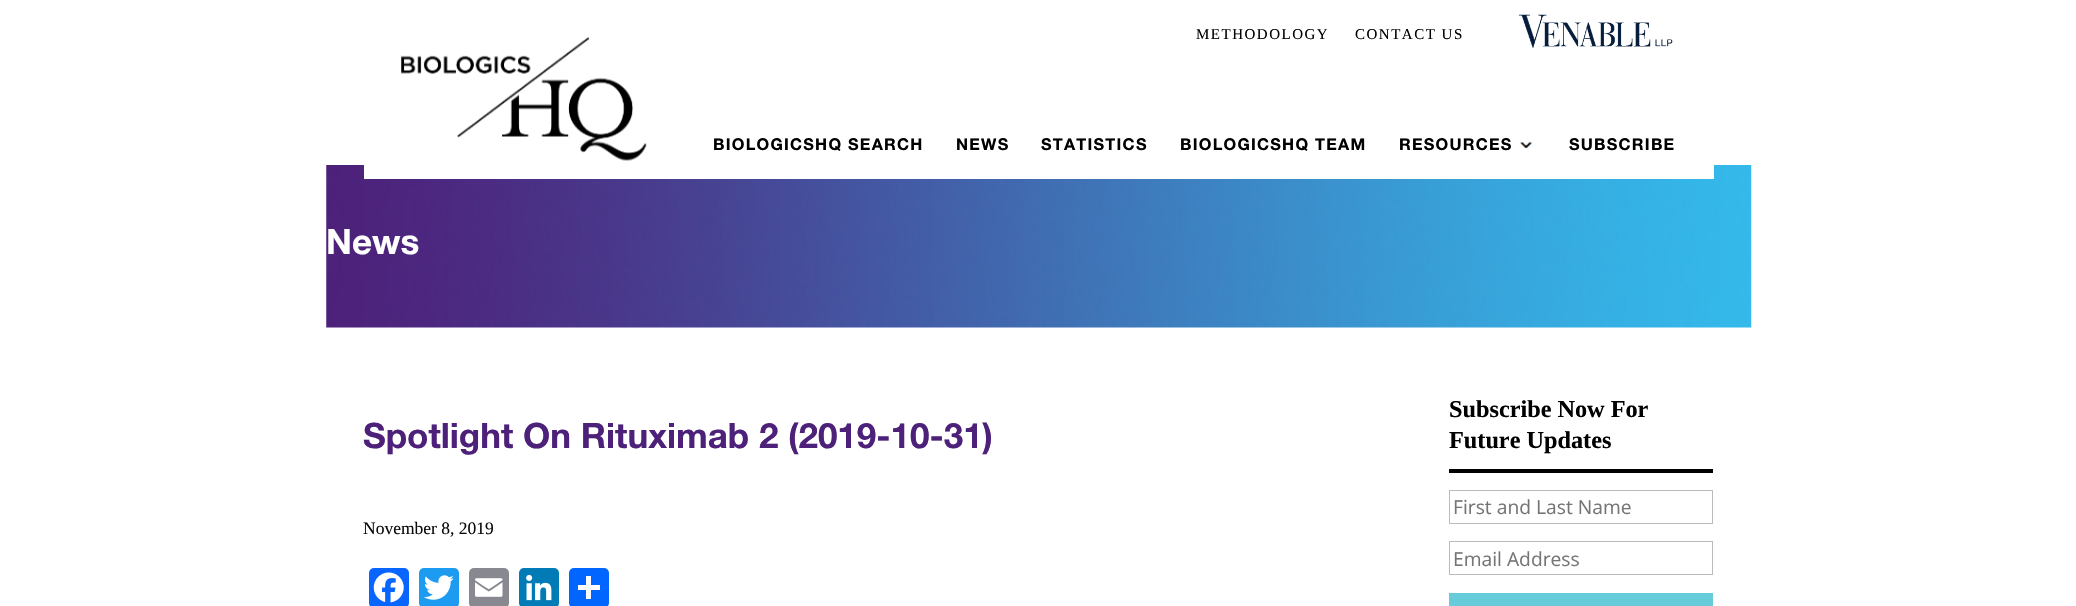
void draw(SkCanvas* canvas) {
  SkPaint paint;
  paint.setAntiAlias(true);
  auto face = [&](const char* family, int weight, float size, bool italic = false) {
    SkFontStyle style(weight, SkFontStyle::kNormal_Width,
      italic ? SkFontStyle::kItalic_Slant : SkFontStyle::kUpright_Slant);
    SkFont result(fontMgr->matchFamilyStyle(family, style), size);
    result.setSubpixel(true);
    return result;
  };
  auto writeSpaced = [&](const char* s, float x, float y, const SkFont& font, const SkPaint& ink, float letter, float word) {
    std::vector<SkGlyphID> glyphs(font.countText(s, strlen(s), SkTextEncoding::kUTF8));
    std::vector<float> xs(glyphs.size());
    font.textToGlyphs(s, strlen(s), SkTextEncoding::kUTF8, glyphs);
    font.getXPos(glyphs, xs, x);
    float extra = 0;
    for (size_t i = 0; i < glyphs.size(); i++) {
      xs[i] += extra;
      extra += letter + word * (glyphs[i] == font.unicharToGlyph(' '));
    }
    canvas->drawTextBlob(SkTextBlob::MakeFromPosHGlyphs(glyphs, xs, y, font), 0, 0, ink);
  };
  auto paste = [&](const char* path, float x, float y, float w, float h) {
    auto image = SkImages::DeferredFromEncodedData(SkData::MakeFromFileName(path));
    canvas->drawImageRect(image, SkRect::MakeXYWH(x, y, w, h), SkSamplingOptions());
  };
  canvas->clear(0xffffffff);
  paste("img/1.png", 1518, 14, 155, 34);
  paste("img/4.png", 326, 165, 1426, 163);
  paint.setColor(0xffffffff);
  canvas->drawRect(SkRect::MakeXYWH(364, 165, 1350, 14), paint);
  paste("img/2.png", 401, 37, 246, 124);
  paste("img/3.png", 1520, 142, 12, 6);
  paint.setColor(0xff0866ff);
  canvas->drawRoundRect(SkRect::MakeXYWH(369, 568, 40, 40), 5, 5, paint);
  paste("img/5.png", 373, 572, 31, 31);
  paint.setColor(0xff1d9bf0);
  canvas->drawRoundRect(SkRect::MakeXYWH(419, 568, 40, 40), 5, 5, paint);
  paste("img/6.png", 424, 575, 30, 25);
  paint.setColor(0xff888990);
  canvas->drawRoundRect(SkRect::MakeXYWH(469, 568, 40, 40), 5, 5, paint);
  paste("img/7.png", 475, 578, 28, 19);
  paint.setColor(0xff007bb5);
  canvas->drawRoundRect(SkRect::MakeXYWH(519, 568, 40, 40), 5, 5, paint);
  paste("img/8.png", 526, 574, 26, 27);
  paint.setColor(0xff0166ff);
  canvas->drawRoundRect(SkRect::MakeXYWH(569, 568, 40, 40), 5, 5, paint);
  {
    const struct { float x, y, w, h; SkColor color; } items[] = {
      {586, 576, 5, 23, 0xffffffff},
      {578, 585, 22, 5, 0xffffffff},
      {1449, 469, 264, 4, 0xff000000},
    };
    for (auto [x, y, w, h, color] : items) {
      paint.setColor(color);
      canvas->drawRect(SkRect::MakeXYWH(x, y, w, h), paint);
    }
  }
  paint.setStroke(true);
  paint.setStrokeWidth(1);
  paint.setColor(0xffbbbbbb);
  canvas->drawRect(SkRect::MakeXYWH(1449.5f, 490.5f, 263, 33), paint);
  canvas->drawRect(SkRect::MakeXYWH(1449.5f, 541.5f, 263, 33), paint);
  paint.setStroke(false);
  paint.setColor(0xff66ccda);
  canvas->drawRect(SkRect::MakeXYWH(1449, 593, 264, 13), paint);
  auto f0 = face("Liberation Serif", 400, 15);
  paint.setColor(0xff000000);
  writeSpaced("METHODOLOGY", 1196, 39, f0, paint, 1.5f, 0);
  writeSpaced("CONTACT US", 1355, 39, f0, paint, 1.5f, 0);
  auto f1 = face("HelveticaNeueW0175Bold", 700, 16.25f);
  {
    const struct { const char* s; float x, y; } items[] = {
      {"BIOLOGICSHQ SEARCH", 713, 150},
      {"NEWS", 956, 150},
      {"STATISTICS", 1041, 150},
      {"BIOLOGICSHQ TEAM", 1180, 150},
      {"RESOURCES", 1399, 150},
      {"SUBSCRIBE", 1569, 150},
    };
    for (auto [s, x, y] : items) {
      writeSpaced(s, x, y, f1, paint, 1.25f, 0);
    }
  }
  auto f2 = face("HelveticaNeueW0175Bold", 700, 35);
  paint.setColor(0xffffffff);
  canvas->drawString("News", 326, 254, f2, paint);
  paint.setColor(0xff4d2079);
  canvas->drawString("Spotlight On Rituximab 2 (2019-10-31)", 363, 448, f2, paint);
  auto f3 = face("Liberation Serif", 400, 17.5f);
  paint.setColor(0xff0a0a0a);
  canvas->drawString("November 8, 2019", 363, 534, f3, paint);
  auto f4 = face("Liberation Serif", 700, 24.25f);
  paint.setColor(0xff000000);
  canvas->drawString("Subscribe Now For", 1449, 417, f4, paint);
  canvas->drawString("Future Updates", 1449, 448, f4, paint);
  auto f5 = face("Open Sans", 400, 19.25f);
  paint.setColor(0xff757575);
  canvas->drawString("First and Last Name", 1453, 514, f5, paint);
  canvas->drawString("Email Address", 1453, 566, f5, paint);
}
